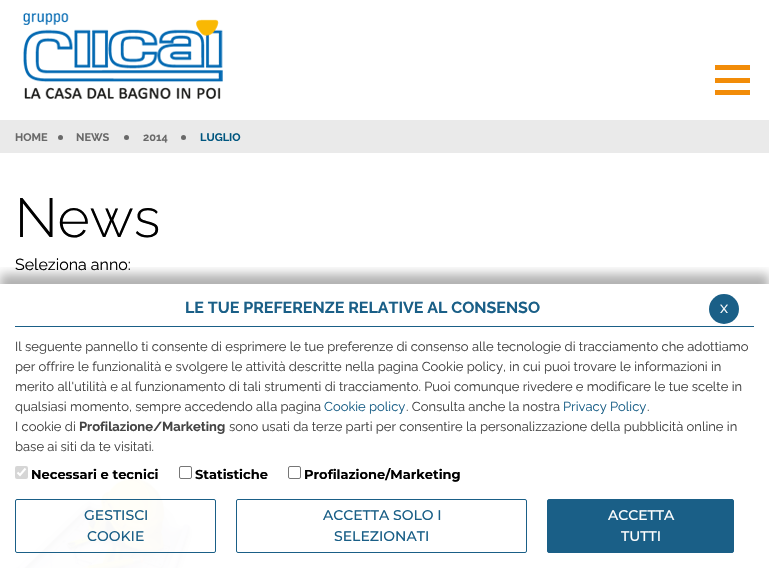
void draw(SkCanvas* canvas) {
  SkPaint paint;
  paint.setAntiAlias(true);
  auto face = [&](const char* family, int weight, float size, bool italic = false) {
    SkFontStyle style(weight, SkFontStyle::kNormal_Width,
      italic ? SkFontStyle::kItalic_Slant : SkFontStyle::kUpright_Slant);
    SkFont result(fontMgr->matchFamilyStyle(family, style), size);
    result.setSubpixel(true);
    return result;
  };
  auto paste = [&](const char* path, float x, float y, float w, float h) {
    auto image = SkImages::DeferredFromEncodedData(SkData::MakeFromFileName(path));
    canvas->drawImageRect(image, SkRect::MakeXYWH(x, y, w, h), SkSamplingOptions());
  };
  auto shape = [&](const char* data, bool evenOdd = false) {
    SkPath result = *SkParsePath::FromSVGString(data);
    if (evenOdd) result.setFillType(SkPathFillType::kEvenOdd);
    return result;
  };
  canvas->clear(0xffffffff);
  paste("img/1.png", 23, 13, 200, 86);
  {
    const struct { float x, y, w, h; SkColor color; } items[] = {
      {715, 65, 35, 5, 0xfff28c08},
      {715, 78, 35, 5, 0xfff28c08},
      {715, 90, 35, 5, 0xfff28c08},
      {0, 120, 769, 33, 0xffeaeaea},
    };
    for (auto [x, y, w, h, color] : items) {
      paint.setColor(color);
      canvas->drawRect(SkRect::MakeXYWH(x, y, w, h), paint);
    }
  }
  paint.setColor(0xff696969);
  canvas->drawCircle(60.5f, 137.5f, 2.5f, paint);
  canvas->drawCircle(126.5f, 137.5f, 2.5f, paint);
  canvas->drawCircle(183.5f, 137.5f, 2.5f, paint);
  paste("img/2.png", 15, 478, 177, 90);
  canvas->save();
  canvas->clipRect(SkRect::MakeXYWH(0, 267, 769, 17));
  paint.setColor(0x4d000000);
  paint.setMaskFilter(SkMaskFilter::MakeBlur(kNormal_SkBlurStyle, 5));
  canvas->drawRect(SkRect::MakeXYWH(0, 274, 769, 284), paint);
  paint.setMaskFilter(nullptr);
  canvas->restore();
  paint.setColor(0xff1a5f87);
  canvas->drawRect(SkRect::MakeXYWH(15, 326, 739, 1), paint);
  paint.setColor(0xffd6d6d6);
  canvas->drawRoundRect(SkRect::MakeXYWH(15, 466, 13, 13), 2, 2, paint);
  paint.setStroke(true);
  paint.setStrokeWidth(2.1f);
  paint.setColor(0xffffffff);
  canvas->drawPath(shape("M17.5 472.5L20 475L25.5 468.5"), paint);
  paint.setStrokeWidth(1);
  paint.setColor(0xff767676);
  canvas->drawRoundRect(SkRect::MakeXYWH(179.5f, 466.5f, 12, 12), 1.5f, 1.5f, paint);
  canvas->drawRoundRect(SkRect::MakeXYWH(288.5f, 466.5f, 12, 12), 1.5f, 1.5f, paint);
  paint.setColor(0xff1a5f87);
  canvas->drawRoundRect(SkRect::MakeXYWH(15.5f, 499.5f, 200, 53), 1.5f, 1.5f, paint);
  canvas->drawRoundRect(SkRect::MakeXYWH(236.5f, 499.5f, 290, 53), 1.5f, 1.5f, paint);
  paint.setStroke(false);
  canvas->drawRoundRect(SkRect::MakeXYWH(547.5f, 499.5f, 186, 53), 1.5f, 1.5f, paint);
  paint.setStroke(true);
  canvas->drawRoundRect(SkRect::MakeXYWH(547.5f, 499.5f, 186, 53), 1.5f, 1.5f, paint);
  paint.setStroke(false);
  canvas->drawCircle(724, 309, 15, paint);
  auto f0 = face("Raleway", 700, 11);
  paint.setColor(0xff696969);
  {
    const struct { const char* s; float x, y; } items[] = {
      {"HOME", 15, 141},
      {"NEWS", 76, 141},
      {"2014", 143, 141},
    };
    for (auto [s, x, y] : items) {
      canvas->drawString(s, x, y, f0, paint);
    }
  }
  paint.setColor(0xff00567f);
  canvas->drawString("LUGLIO", 200, 141, f0, paint);
  auto f1 = face("Raleway", 300, 55);
  paint.setColor(0xff000000);
  canvas->drawString("News", 15, 237, f1, paint);
  auto f2 = face("Raleway", 400, 16);
  canvas->drawString("Seleziona anno:", 15, 270, f2, paint);
  auto f3 = face("Raleway", 700, 16);
  paint.setColor(0xff1a5f87);
  canvas->drawString("LE TUE PREFERENZE RELATIVE AL CONSENSO", 185, 313, f3, paint);
  auto f4 = face("Raleway", 400, 13);
  paint.setColor(0xff444444);
  {
    const struct { const char* s; float x, y; } items[] = {
      {"Il seguente pannello ti consente di esprimere le tue preferenze di consenso alle tecnologie di tracciamento che adottiamo", 15, 351},
      {"per offrire le funzionalità e svolgere le attività descritte nella pagina Cookie policy, in cui puoi trovare le informazioni in", 15, 371},
      {"merito all'utilità e al funzionamento di tali strumenti di tracciamento. Puoi comunque rivedere e modificare le tue scelte in", 15, 391},
      {"qualsiasi momento, sempre accedendo alla pagina", 15, 411},
    };
    for (auto [s, x, y] : items) {
      canvas->drawString(s, x, y, f4, paint);
    }
  }
  paint.setColor(0xff1a5f87);
  canvas->drawString("Cookie policy", 324, 411, f4, paint);
  paint.setColor(0xff444444);
  canvas->drawString(". Consulta anche la nostra", 406, 411, f4, paint);
  paint.setColor(0xff1a5f87);
  canvas->drawString("Privacy Policy", 563, 411, f4, paint);
  paint.setColor(0xff444444);
  canvas->drawString(".", 647, 411, f4, paint);
  canvas->drawString("I cookie di", 15, 431, f4, paint);
  auto f5 = face("Raleway", 700, 13);
  canvas->drawString("Profilazione/Marketing", 79, 431, f5, paint);
  canvas->drawString("sono usati da terze parti per consentire la personalizzazione della pubblicità online in", 229, 431, f4, paint);
  canvas->drawString("base ai siti da te visitati.", 15, 451, f4, paint);
  auto f6 = face("Montserrat", 700, 13);
  paint.setColor(0xff000000);
  {
    const struct { const char* s; float x, y; } items[] = {
      {"Necessari e tecnici", 31, 479},
      {"Statistiche", 195, 479},
      {"Profilazione/Marketing", 304, 479},
    };
    for (auto [s, x, y] : items) {
      canvas->drawString(s, x, y, f6, paint);
    }
  }
  auto f7 = face("Montserrat", 500, 14);
  paint.setColor(0xff1a5f87);
  {
    const struct { const char* s; float x, y; } items[] = {
      {"GESTISCI", 84, 520},
      {"COOKIE", 87, 541},
      {"ACCETTA SOLO I", 323, 520},
      {"SELEZIONATI", 334, 541},
    };
    for (auto [s, x, y] : items) {
      canvas->drawString(s, x, y, f7, paint);
    }
  }
  paint.setColor(0xffffffff);
  canvas->drawString("ACCETTA", 608, 520, f7, paint);
  canvas->drawString("TUTTI", 621, 541, f7, paint);
  canvas->drawString("x", 720, 313, f2, paint);
}
